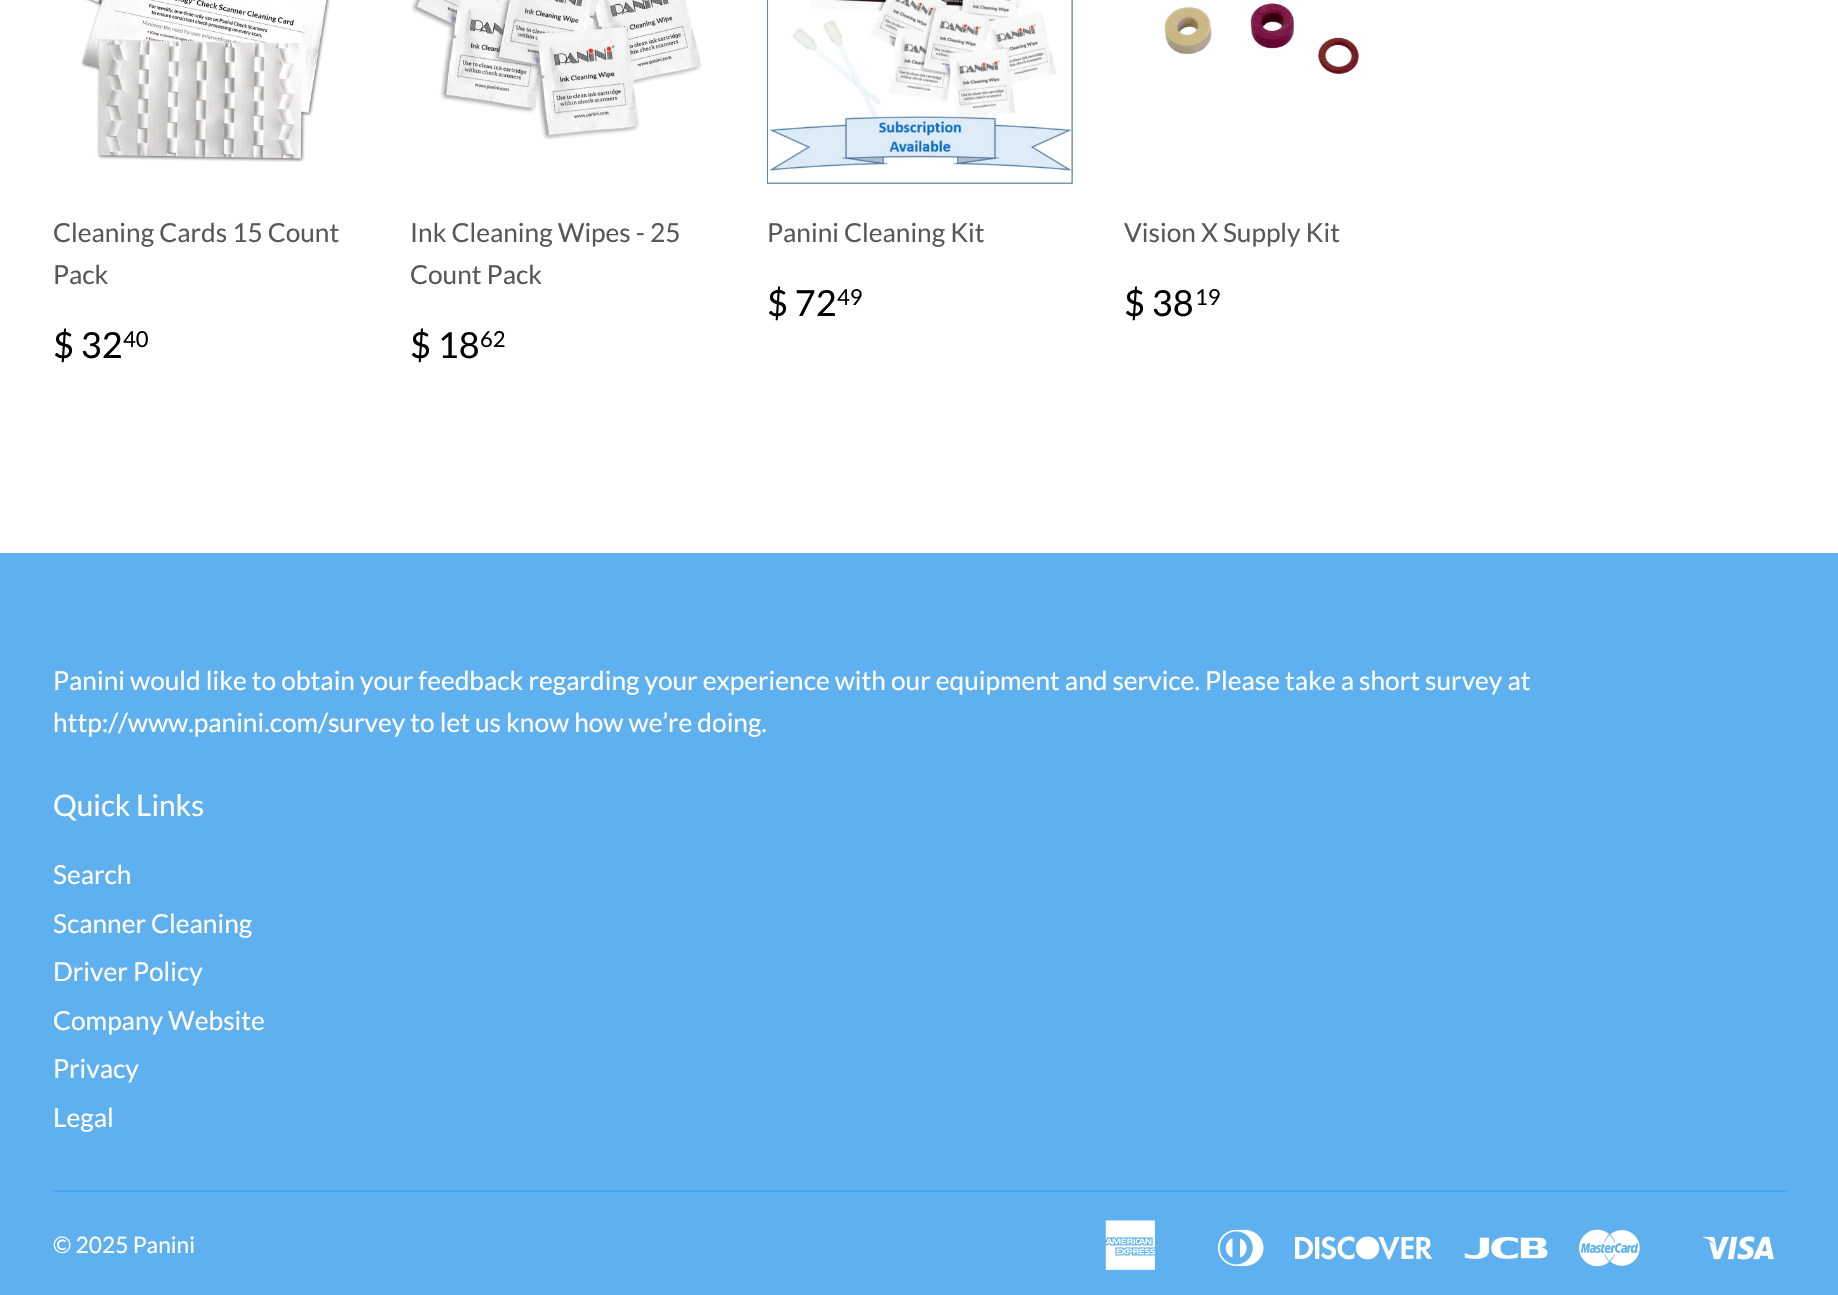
void draw(SkCanvas* canvas) {
  SkPaint paint;
  paint.setAntiAlias(true);
  auto face = [&](const char* family, int weight, float size, bool italic = false) {
    SkFontStyle style(weight, SkFontStyle::kNormal_Width,
      italic ? SkFontStyle::kItalic_Slant : SkFontStyle::kUpright_Slant);
    SkFont result(fontMgr->matchFamilyStyle(family, style), size);
    result.setSubpixel(true);
    return result;
  };
  auto paste = [&](const char* path, float x, float y, float w, float h) {
    auto image = SkImages::DeferredFromEncodedData(SkData::MakeFromFileName(path));
    canvas->drawImageRect(image, SkRect::MakeXYWH(x, y, w, h), SkSamplingOptions());
  };
  canvas->clear(0xffffffff);
  paste("img/1.png", 81, 0, 249, 162);
  paste("img/2.png", 411, 0, 291, 140);
  paste("img/3.png", 767, 0, 306, 184);
  paste("img/4.png", 1164, 3, 195, 72);
  paint.setColor(0xff5eb0ef);
  canvas->drawRect(SkRect::MakeXYWH(0, 553, 1838, 742), paint);
  paint.setColor(0xff47a5ed);
  canvas->drawRect(SkRect::MakeXYWH(53, 1190, 1734, 2), paint);
  paste("img/5.png", 1105, 1220, 51, 50);
  paste("img/6.png", 1218, 1229, 46, 37);
  paste("img/7.png", 1295, 1236, 138, 24);
  paste("img/8.png", 1464, 1237, 84, 22);
  paste("img/9.png", 1579, 1229, 61, 38);
  paste("img/10.png", 1702, 1236, 72, 24);
  auto f0 = face("Lato", 400, 26.25f);
  paint.setColor(0xff585858);
  canvas->drawString("Cleaning Cards 15 Count", 53, 242, f0, paint);
  canvas->drawString("Pack", 53, 284, f0, paint);
  auto f1 = face("Lato", 400, 36);
  paint.setColor(0xff000000);
  canvas->drawString("$ 32", 53, 358, f1, paint);
  auto f2 = face("Lato", 400, 22);
  canvas->drawString("40", 123, 347, f2, paint);
  paint.setColor(0xff585858);
  canvas->drawString("Ink Cleaning Wipes - 25", 410, 242, f0, paint);
  canvas->drawString("Count Pack", 410, 284, f0, paint);
  paint.setColor(0xff000000);
  canvas->drawString("$ 18", 410, 358, f1, paint);
  canvas->drawString("62", 480, 347, f2, paint);
  paint.setColor(0xff585858);
  canvas->drawString("Panini Cleaning Kit", 767, 242, f0, paint);
  paint.setColor(0xff000000);
  canvas->drawString("$ 72", 767, 316, f1, paint);
  canvas->drawString("49", 837, 305, f2, paint);
  paint.setColor(0xff585858);
  canvas->drawString("Vision X Supply Kit", 1124, 242, f0, paint);
  paint.setColor(0xff000000);
  canvas->drawString("$ 38", 1124, 316, f1, paint);
  canvas->drawString("19", 1195, 305, f2, paint);
  paint.setColor(0xffffffff);
  canvas->drawString("Panini would like to obtain your feedback regarding your experience with our equipment and service. Please take a short survey at", 53, 690, f0, paint);
  canvas->drawString("http://www.panini.com/survey to let us know how we’re doing.", 53, 732, f0, paint);
  auto f3 = face("Lato", 400, 29.75f);
  canvas->drawString("Quick Links", 53, 816, f3, paint);
  {
    const struct { const char* s; float x, y; } items[] = {
      {"Search", 53, 884},
      {"Scanner Cleaning", 53, 933},
      {"Driver Policy", 53, 981},
      {"Company Website", 53, 1030},
      {"Privacy", 53, 1078},
      {"Legal", 53, 1127},
    };
    for (auto [s, x, y] : items) {
      canvas->drawString(s, x, y, f0, paint);
    }
  }
  auto f4 = face("Lato", 400, 22.75f);
  canvas->drawString("© 2025 Panini", 53, 1253, f4, paint);
}
